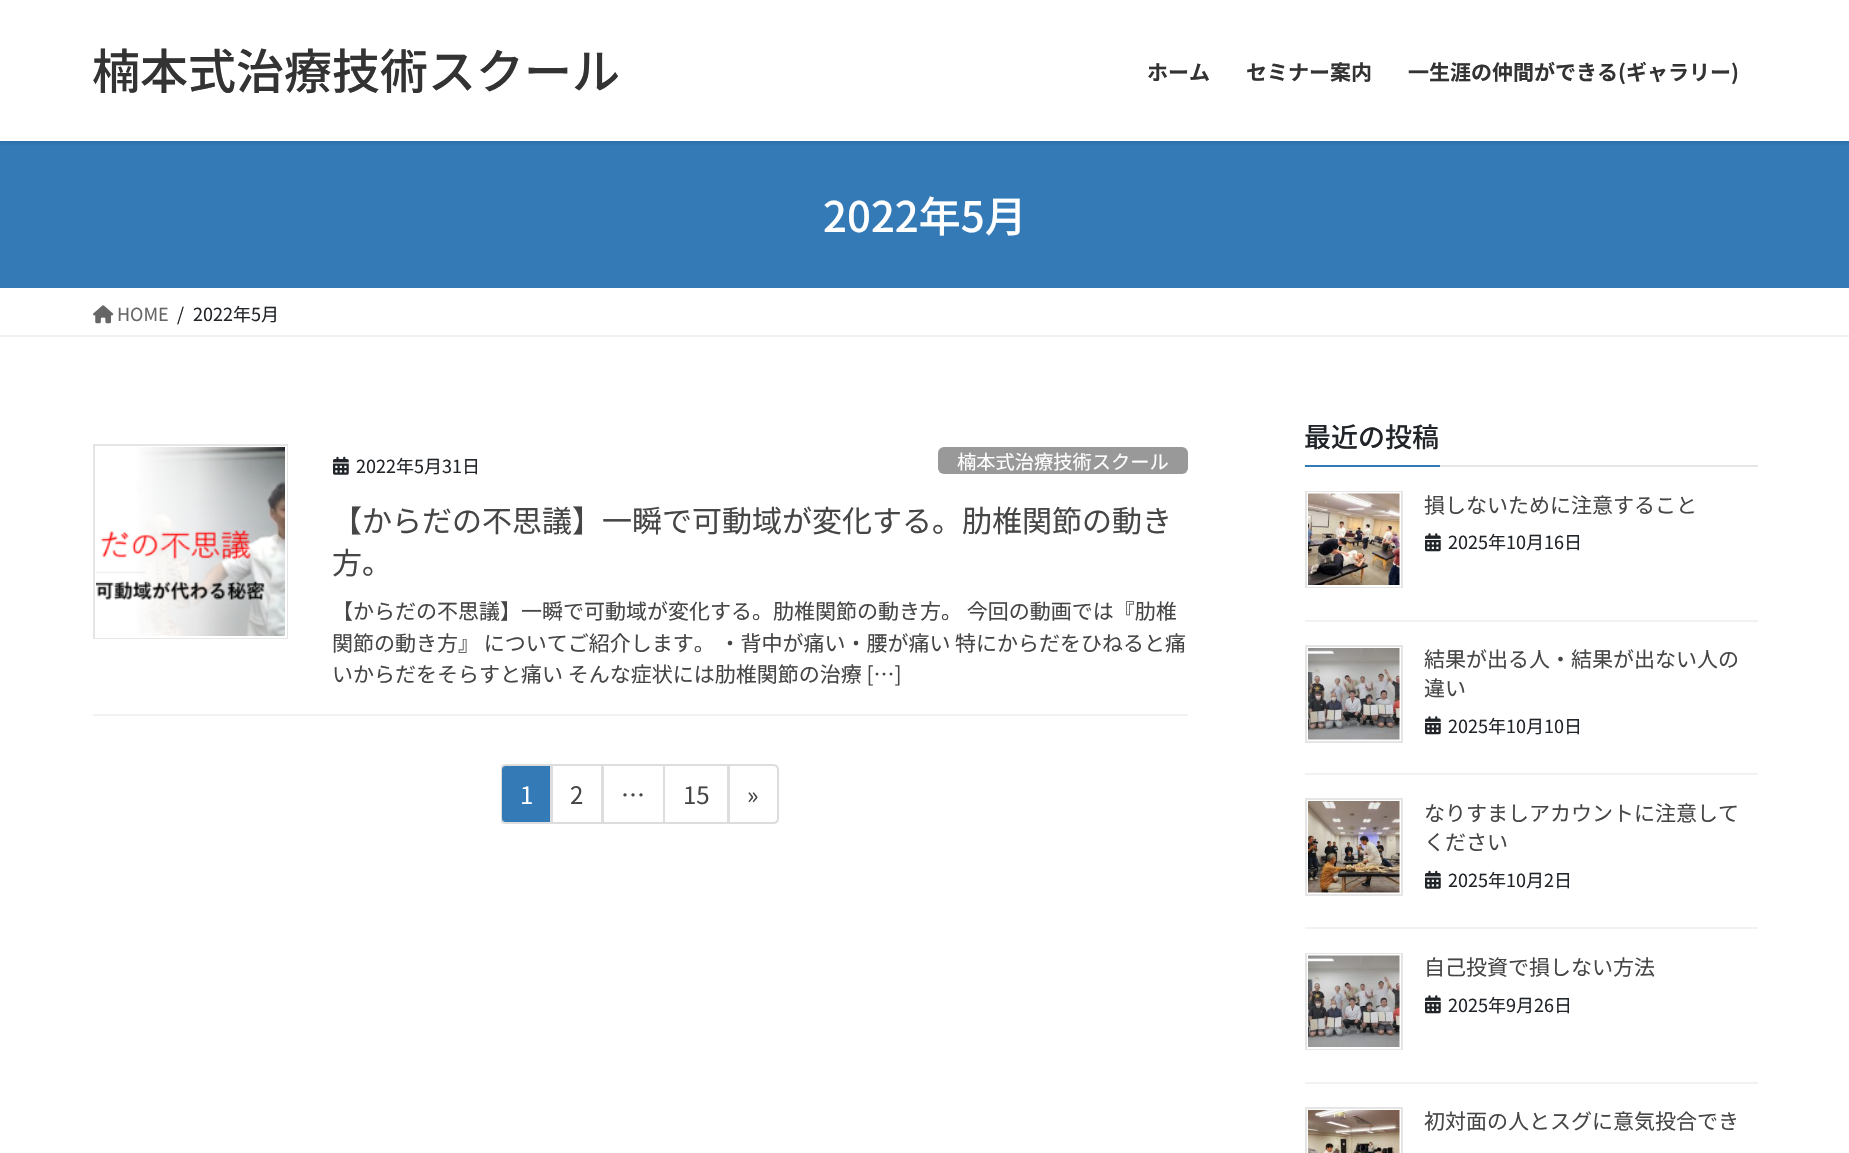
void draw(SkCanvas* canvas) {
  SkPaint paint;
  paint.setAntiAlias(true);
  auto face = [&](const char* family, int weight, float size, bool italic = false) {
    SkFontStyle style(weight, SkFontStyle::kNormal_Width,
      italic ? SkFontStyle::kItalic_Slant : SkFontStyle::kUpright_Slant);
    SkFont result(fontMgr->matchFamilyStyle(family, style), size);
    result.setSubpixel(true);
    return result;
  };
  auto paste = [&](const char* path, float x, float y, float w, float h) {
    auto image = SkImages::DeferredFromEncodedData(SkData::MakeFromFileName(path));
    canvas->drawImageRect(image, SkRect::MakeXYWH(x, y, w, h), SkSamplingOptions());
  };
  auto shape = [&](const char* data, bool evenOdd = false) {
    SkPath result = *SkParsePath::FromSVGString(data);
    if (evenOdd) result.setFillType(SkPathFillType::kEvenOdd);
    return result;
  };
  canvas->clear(0xffffffff);
  paint.setColor(0xff337ab7);
  canvas->drawRect(SkRect::MakeXYWH(0, 141, 1849, 147), paint);
  canvas->save();
  canvas->clipRect(SkRect::MakeXYWH(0, 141, 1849, 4));
  paint.setColor(0x1a000000);
  paint.setMaskFilter(SkMaskFilter::MakeBlur(kNormal_SkBlurStyle, 2));
  canvas->drawRect(SkRect::MakeXYWH(0, 2, 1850, 141), paint);
  paint.setMaskFilter(nullptr);
  canvas->restore();
  paint.setColor(0xfff2f2f2);
  canvas->drawRect(SkRect::MakeXYWH(0, 335, 1849, 2), paint);
  paste("img/1.png", 93, 305, 21, 19);
  canvas->drawRect(SkRect::MakeXYWH(93, 714, 1095, 2), paint);
  paint.setStroke(true);
  paint.setStrokeWidth(2);
  paint.setColor(0xffe5e5e5);
  canvas->drawRect(SkRect::MakeXYWH(94, 445, 193, 193), paint);
  paint.setColor(0xffffffff);
  canvas->drawRect(SkRect::MakeXYWH(96, 447, 190, 190), paint);
  paste("img/2.png", 96, 447, 189, 189);
  paste("img/3.png", 333, 456, 16, 19);
  paint.setStroke(false);
  paint.setColor(0xff999999);
  canvas->drawRoundRect(SkRect::MakeXYWH(938, 447, 250, 27), 6, 6, paint);
  canvas->save();
  canvas->clipRect(SkRect::MakeXYWH(501, 764, 51, 60));
  paint.setColor(0xff337ab7);
  canvas->drawPath(shape("M506 765H551V823H506C503 823 501 821 501 818V770C501 767 503 765 506 765Z"), paint);
  paint.setStroke(true);
  paint.setColor(0xffdddddd);
  canvas->drawPath(shape("M506 765H551V823H506C503 823 501 821 501 818V770C501 767 503 765 506 765Z"), paint);
  canvas->restore();
  canvas->save();
  canvas->clipRect(SkRect::MakeXYWH(552, 764, 51, 60));
  canvas->drawRect(SkRect::MakeXYWH(552, 765, 50, 58), paint);
  canvas->restore();
  canvas->save();
  canvas->clipRect(SkRect::MakeXYWH(603, 764, 62, 60));
  canvas->drawRect(SkRect::MakeXYWH(603, 765, 61, 58), paint);
  canvas->restore();
  canvas->save();
  canvas->clipRect(SkRect::MakeXYWH(665, 764, 64, 60));
  canvas->drawRect(SkRect::MakeXYWH(664, 765, 64, 58), paint);
  canvas->restore();
  canvas->save();
  canvas->clipRect(SkRect::MakeXYWH(729, 764, 50, 60));
  canvas->drawPath(shape("M729 765H773C776 765 778 767 778 770V818C778 821 776 823 773 823H729Z"), paint);
  canvas->restore();
  paint.setStroke(false);
  {
    const struct { float x, y, w, h; SkColor color; } items[] = {
      {1440, 465, 318, 2, 0xffe6e6e6},
      {1305, 465, 135, 2, 0xff337ab7},
      {1305, 620, 453, 2, 0xfff2f2f2},
    };
    for (auto [x, y, w, h, color] : items) {
      paint.setColor(color);
      canvas->drawRect(SkRect::MakeXYWH(x, y, w, h), paint);
    }
  }
  paint.setStroke(true);
  paint.setColor(0xffe5e5e5);
  canvas->drawRect(SkRect::MakeXYWH(1306, 492, 96, 95), paint);
  paint.setColor(0xffffffff);
  canvas->drawRect(SkRect::MakeXYWH(1308, 493, 92, 93), paint);
  paste("img/4.png", 1308, 493, 92, 92);
  paste("img/5.png", 1425, 533, 16, 19);
  paint.setStroke(false);
  paint.setColor(0xfff2f2f2);
  canvas->drawRect(SkRect::MakeXYWH(1305, 773, 453, 2), paint);
  paint.setStroke(true);
  paint.setColor(0xffe5e5e5);
  canvas->drawRect(SkRect::MakeXYWH(1306, 646, 96, 96), paint);
  paste("img/6.png", 1308, 648, 92, 92);
  paste("img/5.png", 1425, 716, 16, 19);
  paint.setStroke(false);
  paint.setColor(0xfff2f2f2);
  canvas->drawRect(SkRect::MakeXYWH(1305, 927, 453, 2), paint);
  paint.setStroke(true);
  paint.setColor(0xffe5e5e5);
  canvas->drawRect(SkRect::MakeXYWH(1306, 799, 96, 96), paint);
  paste("img/7.png", 1308, 801, 92, 92);
  paste("img/3.png", 1425, 870, 16, 19);
  paint.setStroke(false);
  paint.setColor(0xfff2f2f2);
  canvas->drawRect(SkRect::MakeXYWH(1305, 1082, 453, 2), paint);
  paint.setStroke(true);
  paint.setColor(0xffe5e5e5);
  canvas->drawRect(SkRect::MakeXYWH(1306, 954, 96, 95), paint);
  paint.setColor(0xffffffff);
  canvas->drawRect(SkRect::MakeXYWH(1308, 955, 92, 93), paint);
  paste("img/8.png", 1308, 955, 92, 92);
  paste("img/5.png", 1425, 995, 16, 19);
  paint.setColor(0xffe5e5e5);
  canvas->drawRect(SkRect::MakeXYWH(1306, 1108, 96, 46), paint);
  paste("img/9.png", 1308, 1110, 92, 43);
  auto f0 = face("Noto Sans JP", 500, 48);
  paint.setStroke(false);
  paint.setColor(0xff333333);
  canvas->drawString("楠本式治療技術スクール", 92, 89, f0, paint);
  auto f1 = face("Noto Sans JP", 700, 21);
  {
    const struct { const char* s; float x, y; } items[] = {
      {"ホーム", 1147, 80},
      {"セミナー案内", 1246, 80},
      {"一生涯の仲間ができる(ギャラリー)", 1408, 80},
    };
    for (auto [s, x, y] : items) {
      canvas->drawString(s, x, y, f1, paint);
    }
  }
  auto f2 = face("Noto Sans JP", 500, 42);
  paint.setColor(0xffffffff);
  canvas->drawString("2022年5月", 823, 232, f2, paint);
  auto f3 = face("Noto Sans JP", 400, 18);
  paint.setColor(0xff666666);
  canvas->drawString("HOME", 117, 321, f3, paint);
  paint.setColor(0xff212529);
  {
    const struct { const char* s; float x, y; } items[] = {
      {"/", 177, 321},
      {"2022年5月", 193, 321},
      {"2022年5月31日", 356, 473},
    };
    for (auto [s, x, y] : items) {
      canvas->drawString(s, x, y, f3, paint);
    }
  }
  auto f4 = face("Noto Sans JP", 400, 19.25f);
  paint.setColor(0xffffffff);
  canvas->drawString("楠本式治療技術スクール", 957, 469, f4, paint);
  auto f5 = face("Noto Sans JP", 400, 30);
  paint.setColor(0xff464646);
  canvas->drawString("【からだの不思議】一瞬で可動域が変化する。肋椎関節の動き", 332, 532, f5, paint);
  canvas->drawString("方。", 332, 574, f5, paint);
  auto f6 = face("Noto Sans JP", 400, 21);
  {
    const struct { const char* s; float x, y; } items[] = {
      {"【からだの不思議】一瞬で可動域が変化する。肋椎関節の動き方。 今回の動画では『肋椎", 332, 619},
      {"関節の動き方』 についてご紹介します。 ・背中が痛い・腰が痛い 特にからだをひねると痛", 332, 651},
      {"いからだをそらすと痛い そんな症状には肋椎関節の治療 […]", 332, 682},
    };
    for (auto [s, x, y] : items) {
      canvas->drawString(s, x, y, f6, paint);
    }
  }
  auto f7 = face("Noto Sans JP", 400, 24);
  paint.setColor(0xffffffff);
  canvas->drawString("1", 520, 804, f7, paint);
  paint.setColor(0xff464646);
  {
    const struct { const char* s; float x, y; } items[] = {
      {"2", 570, 804},
      {"…", 621, 804},
      {"15", 683, 804},
      {"»", 747, 804},
    };
    for (auto [s, x, y] : items) {
      canvas->drawString(s, x, y, f7, paint);
    }
  }
  auto f8 = face("Noto Sans JP", 500, 27);
  paint.setColor(0xff212529);
  canvas->drawString("最近の投稿", 1304, 447, f8, paint);
  paint.setColor(0xff464646);
  canvas->drawString("損しないために注意すること", 1424, 513, f6, paint);
  paint.setColor(0xff212529);
  canvas->drawString("2025年10月16日", 1448, 549, f3, paint);
  paint.setColor(0xff464646);
  canvas->drawString("結果が出る人・結果が出ない人の", 1424, 667, f6, paint);
  canvas->drawString("違い", 1424, 696, f6, paint);
  paint.setColor(0xff212529);
  canvas->drawString("2025年10月10日", 1448, 733, f3, paint);
  paint.setColor(0xff464646);
  canvas->drawString("なりすましアカウントに注意して", 1424, 821, f6, paint);
  canvas->drawString("ください", 1424, 850, f6, paint);
  paint.setColor(0xff212529);
  canvas->drawString("2025年10月2日", 1448, 887, f3, paint);
  paint.setColor(0xff464646);
  canvas->drawString("自己投資で損しない方法", 1424, 975, f6, paint);
  paint.setColor(0xff212529);
  canvas->drawString("2025年9月26日", 1448, 1012, f3, paint);
  paint.setColor(0xff464646);
  canvas->drawString("初対面の人とスグに意気投合でき", 1424, 1129, f6, paint);
}
